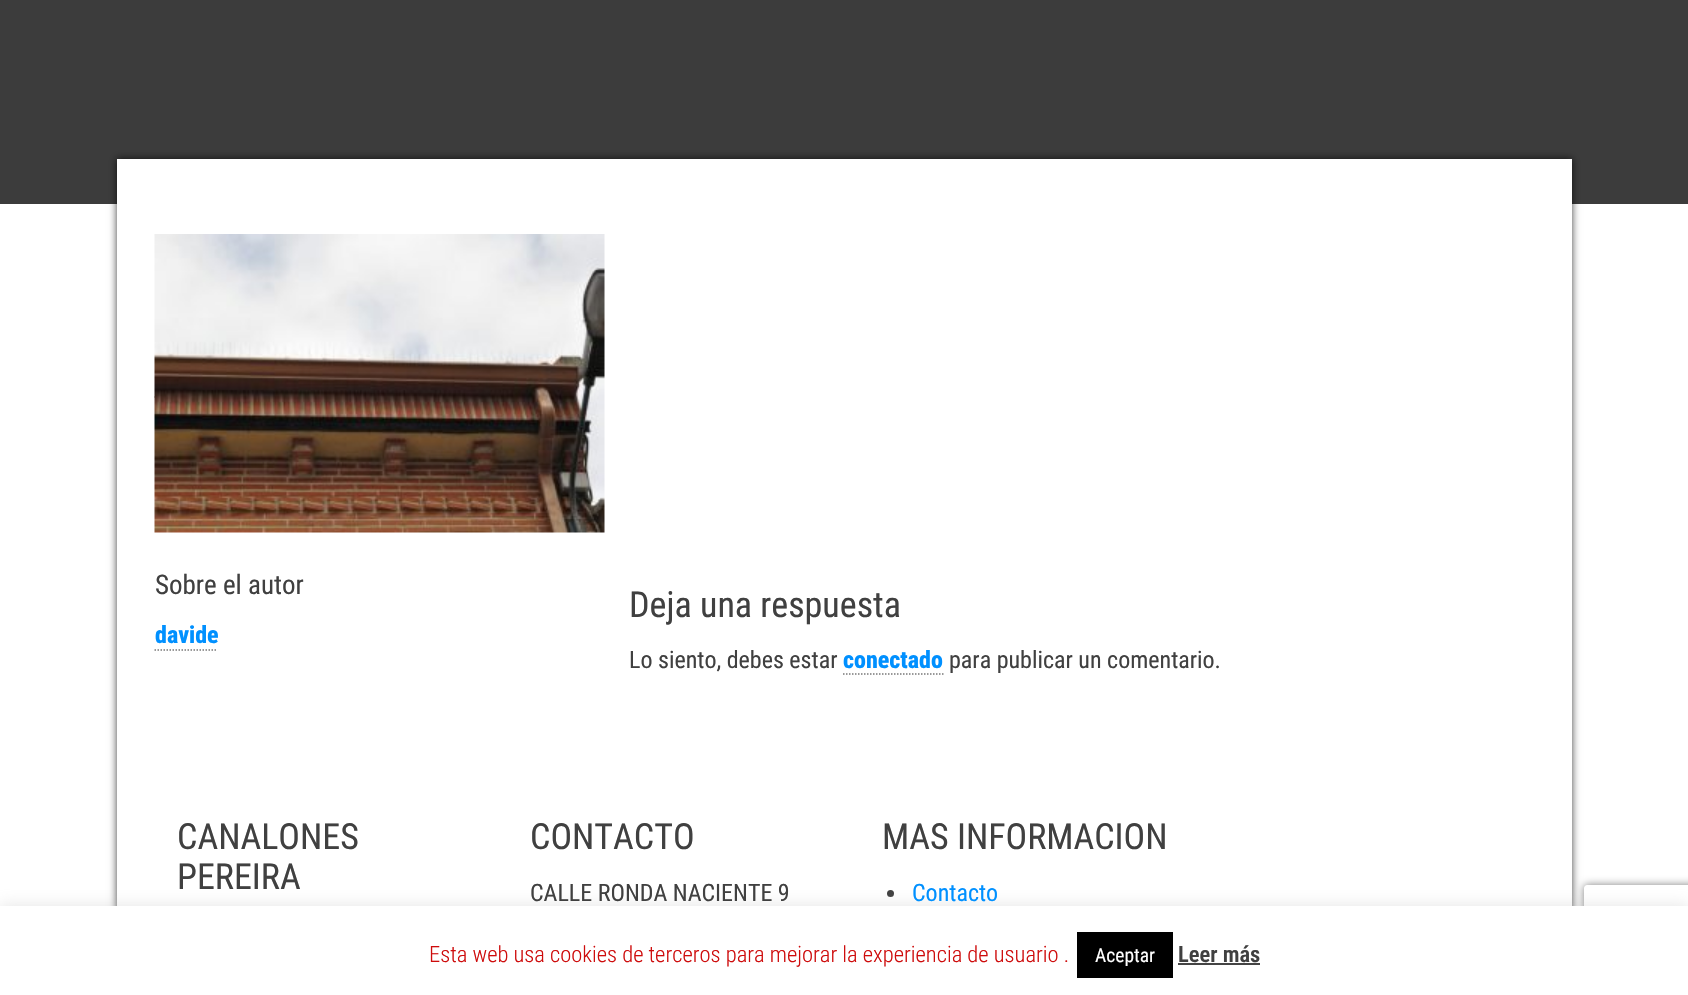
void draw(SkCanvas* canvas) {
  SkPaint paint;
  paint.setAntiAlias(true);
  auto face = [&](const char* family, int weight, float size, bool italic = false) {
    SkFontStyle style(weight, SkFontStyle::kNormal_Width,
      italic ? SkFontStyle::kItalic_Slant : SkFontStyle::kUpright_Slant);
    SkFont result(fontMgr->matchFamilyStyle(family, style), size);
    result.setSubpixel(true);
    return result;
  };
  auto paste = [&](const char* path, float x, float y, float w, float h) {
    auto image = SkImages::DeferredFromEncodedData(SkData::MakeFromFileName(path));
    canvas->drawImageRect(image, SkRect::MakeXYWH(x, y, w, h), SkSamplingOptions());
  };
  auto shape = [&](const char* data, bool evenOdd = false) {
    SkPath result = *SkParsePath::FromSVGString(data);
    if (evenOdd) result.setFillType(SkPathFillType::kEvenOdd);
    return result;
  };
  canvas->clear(0xffffffff);
  paint.setColor(0xff3c3c3c);
  canvas->drawRect(SkRect::MakeXYWH(0, 0, 1688, 204), paint);
  paint.setColor(0xbf000000);
  paint.setMaskFilter(SkMaskFilter::MakeBlur(kNormal_SkBlurStyle, 4));
  canvas->drawRect(SkRect::MakeXYWH(117, 159, 1455, 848), paint);
  paint.setMaskFilter(nullptr);
  canvas->save();
  canvas->clipPath(shape("M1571 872H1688V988H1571ZM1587 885H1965C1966.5 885 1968 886.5 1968 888V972C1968 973.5 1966.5 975 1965 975H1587C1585.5 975 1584 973.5 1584 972V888C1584 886.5 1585.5 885 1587 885Z", true), true);
  paint.setColor(0xff808080);
  paint.setMaskFilter(SkMaskFilter::MakeBlur(kNormal_SkBlurStyle, 4));
  canvas->drawRoundRect(SkRect::MakeXYWH(1584, 885, 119, 90), 3, 3, paint);
  paint.setMaskFilter(nullptr);
  canvas->restore();
  paint.setColor(0xffffffff);
  canvas->drawRect(SkRect::MakeXYWH(117, 159, 1455, 747), paint);
  paint.setStroke(true);
  paint.setStrokeWidth(1.5f);
  paint.setColor(0xff777777);
  paint.setPathEffect(SkDashPathEffect::Make({{1.5f, 1.5f}}, 0));
  canvas->drawPath(shape("M154.5 397H604.5"), paint);
  paint.setPathEffect(nullptr);
  paste("img/1.png", 154, 234, 451, 299);
  paint.setPathEffect(SkDashPathEffect::Make({{1.5f, 1.5f}}, 0));
  canvas->drawPath(shape("M154.5 650H217.5"), paint);
  paint.setPathEffect(nullptr);
  paint.setPathEffect(SkDashPathEffect::Make({{1.5f, 1.5f}}, 0));
  canvas->drawPath(shape("M843 674H943.5"), paint);
  paint.setPathEffect(nullptr);
  paint.setStroke(false);
  paint.setColor(0xff404040);
  canvas->drawCircle(890.5f, 893.5f, 3.5f, paint);
  paint.setColor(0x4dacabab);
  paint.setMaskFilter(SkMaskFilter::MakeBlur(kNormal_SkBlurStyle, 7.5f));
  canvas->drawRect(SkRect::MakeXYWH(0, 905, 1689, 90), paint);
  paint.setMaskFilter(nullptr);
  {
    const struct { float x, y, w, h; SkColor color; } items[] = {
      {0, 906, 1688, 89, 0xffffffff},
      {1077, 932, 96, 46, 0xff000000},
      {1178, 963, 82, 2, 0xff444444},
    };
    for (auto [x, y, w, h, color] : items) {
      paint.setColor(color);
      canvas->drawRect(SkRect::MakeXYWH(x, y, w, h), paint);
    }
  }
  auto f0 = face("Roboto Condensed", 400, 27);
  paint.setColor(0xff404040);
  canvas->drawString("Sobre el autor", 155, 594, f0, paint);
  auto f1 = face("Roboto Condensed", 800, 24);
  paint.setColor(0xff0090ff);
  canvas->drawString("davide", 155, 643, f1, paint);
  auto f2 = face("Roboto Condensed", 400, 36);
  paint.setColor(0xff404040);
  canvas->drawString("Deja una respuesta", 629, 617, f2, paint);
  auto f3 = face("Roboto Condensed", 400, 24);
  canvas->drawString("Lo siento, debes estar", 629, 668, f3, paint);
  paint.setColor(0xff0090ff);
  canvas->drawString("conectado", 843, 668, f1, paint);
  paint.setColor(0xff404040);
  canvas->drawString("para publicar un comentario.", 949, 668, f3, paint);
  {
    const struct { const char* s; float x, y; } items[] = {
      {"CANALONES", 177, 849},
      {"PEREIRA", 177, 889},
      {"CONTACTO", 530, 849},
    };
    for (auto [s, x, y] : items) {
      canvas->drawString(s, x, y, f2, paint);
    }
  }
  canvas->drawString("CALLE RONDA NACIENTE 9", 530, 901, f3, paint);
  canvas->drawString("MAS INFORMACION", 882, 849, f2, paint);
  paint.setColor(0xff0090ff);
  canvas->drawString("Contacto", 912, 901, f3, paint);
  auto f4 = face("Roboto Condensed", 300, 22.5f);
  paint.setColor(0xffce0c0c);
  canvas->drawString("Esta web usa cookies de terceros para mejorar la experiencia de usuario .", 429, 962, f4, paint);
  auto f5 = face("Roboto Condensed", 400, 19.5f);
  paint.setColor(0xffffffff);
  canvas->drawString("Aceptar", 1095, 962, f5, paint);
  auto f6 = face("Roboto Condensed", 600, 22.5f);
  paint.setColor(0xff404040);
  canvas->drawString("Leer más", 1178, 962, f6, paint);
}
